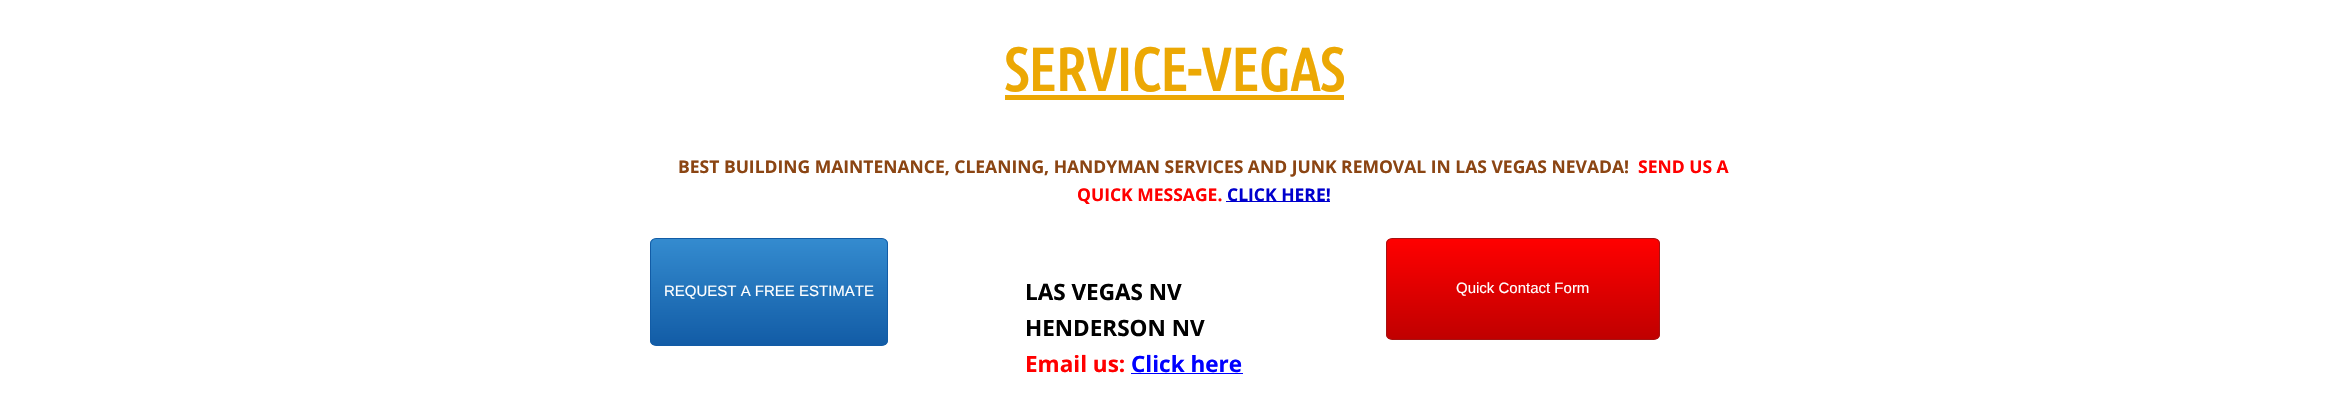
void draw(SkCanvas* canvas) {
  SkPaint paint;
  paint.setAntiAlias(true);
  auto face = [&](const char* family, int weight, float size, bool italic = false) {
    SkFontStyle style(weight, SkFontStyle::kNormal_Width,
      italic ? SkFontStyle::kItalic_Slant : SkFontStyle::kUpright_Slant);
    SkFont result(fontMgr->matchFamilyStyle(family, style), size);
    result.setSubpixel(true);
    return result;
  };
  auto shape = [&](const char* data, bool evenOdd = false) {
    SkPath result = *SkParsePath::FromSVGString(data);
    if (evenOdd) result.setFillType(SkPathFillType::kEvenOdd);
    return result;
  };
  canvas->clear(0xffffffff);
  paint.setColor(0xffeca804);
  canvas->drawRect(SkRect::MakeXYWH(1005, 95, 339, 5), paint);
  paint.setColor(0xff0000cd);
  canvas->drawRect(SkRect::MakeXYWH(1226, 201, 104, 1), paint);
  canvas->save();
  canvas->clipPath(shape("M656 238H882C885.5 238 888 240.5 888 244V340C888 343.5 885.5 346 882 346H656C652.5 346 650 343.5 650 340V244C650 240.5 652.5 238 656 238Z"), true);
  {
    const SkColor colors[] = {0xff348bcf, 0xff125ca6};
    const float stops[] = {0, 1};
    const SkPoint ends[] = {{769, 239}, {769, 345}};
    paint.setShader(SkGradientShader::MakeLinear(ends, colors, stops, 2, SkTileMode::kClamp));
    paint.setAlpha(255);
  }
  canvas->drawRect(SkRect::MakeXYWH(650, 239, 238, 106), paint);
  canvas->restore();
  paint.setStroke(true);
  paint.setStrokeWidth(1);
  paint.setShader(nullptr);
  paint.setColor(0xff125ca6);
  canvas->drawRoundRect(SkRect::MakeXYWH(650.5f, 238.5f, 237, 107), 5.5f, 5.5f, paint);
  paint.setStroke(false);
  paint.setColor(0xff0000ff);
  canvas->drawRect(SkRect::MakeXYWH(1131, 373, 112, 1), paint);
  canvas->save();
  canvas->clipPath(shape("M1392 238H1654C1657.5 238 1660 240.5 1660 244V334C1660 337.5 1657.5 340 1654 340H1392C1388.5 340 1386 337.5 1386 334V244C1386 240.5 1388.5 238 1392 238Z"), true);
  {
    const SkColor colors[] = {0xffff0000, 0xffc00000};
    const float stops[] = {0, 1};
    const SkPoint ends[] = {{1523, 239}, {1523, 339}};
    paint.setShader(SkGradientShader::MakeLinear(ends, colors, stops, 2, SkTileMode::kClamp));
    paint.setAlpha(255);
  }
  canvas->drawRect(SkRect::MakeXYWH(1386, 239, 274, 100), paint);
  canvas->restore();
  paint.setStroke(true);
  paint.setShader(nullptr);
  paint.setColor(0xffa61212);
  canvas->drawRoundRect(SkRect::MakeXYWH(1386.5f, 238.5f, 273, 101), 5.5f, 5.5f, paint);
  auto f0 = face("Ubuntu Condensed", 700, 60);
  paint.setStroke(false);
  paint.setColor(0xffeca804);
  canvas->drawString("SERVICE-VEGAS", 1004, 91, f0, paint);
  auto f1 = face("Open Sans", 700, 17.5f);
  paint.setColor(0xff8b4513);
  canvas->drawString("BEST BUILDING MAINTENANCE, CLEANING, HANDYMAN SERVICES AND JUNK REMOVAL IN LAS VEGAS NEVADA!", 678, 173, f1, paint);
  paint.setColor(0xffff0000);
  canvas->drawString("SEND US A", 1638, 173, f1, paint);
  canvas->drawString("QUICK MESSAGE.", 1077, 201, f1, paint);
  paint.setColor(0xff0000cd);
  canvas->drawString("CLICK HERE!", 1227, 201, f1, paint);
  auto f2 = face("Liberation Sans", 400, 15);
  paint.setColor(0xffffffff);
  canvas->drawString("REQUEST A FREE ESTIMATE", 664, 296, f2, paint);
  auto f3 = face("Open Sans", 700, 22.5f);
  paint.setColor(0xff000000);
  canvas->drawString("LAS VEGAS NV", 1025, 300, f3, paint);
  canvas->drawString("HENDERSON NV", 1025, 336, f3, paint);
  paint.setColor(0xffff0000);
  canvas->drawString("Email us:", 1025, 372, f3, paint);
  paint.setColor(0xff0000ff);
  canvas->drawString("Click here", 1131, 372, f3, paint);
  paint.setColor(0xffffffff);
  canvas->drawString("Quick Contact Form", 1456, 293, f2, paint);
}
